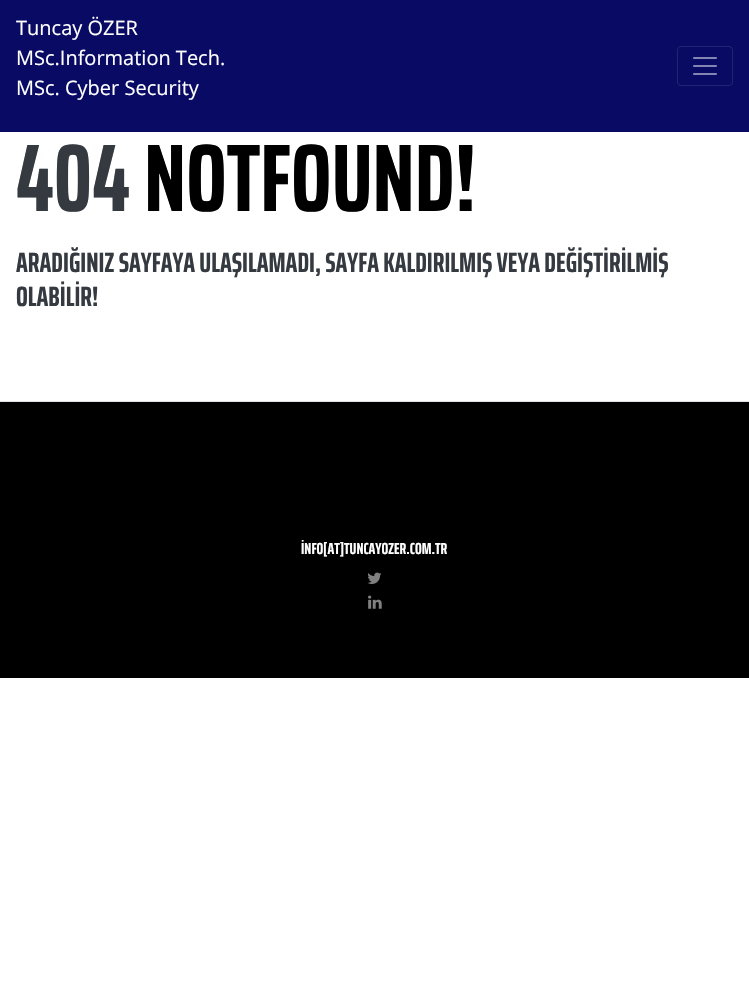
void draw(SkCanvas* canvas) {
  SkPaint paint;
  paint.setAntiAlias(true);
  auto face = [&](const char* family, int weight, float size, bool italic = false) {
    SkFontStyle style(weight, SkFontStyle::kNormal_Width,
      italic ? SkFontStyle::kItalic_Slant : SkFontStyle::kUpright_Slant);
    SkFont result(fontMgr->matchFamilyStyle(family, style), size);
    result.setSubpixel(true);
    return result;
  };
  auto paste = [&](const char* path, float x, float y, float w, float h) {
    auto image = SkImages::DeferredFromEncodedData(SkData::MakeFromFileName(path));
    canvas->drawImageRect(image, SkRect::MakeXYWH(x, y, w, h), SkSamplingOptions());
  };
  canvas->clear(0xffffffff);
  paint.setColor(0xff080a63);
  canvas->drawRect(SkRect::MakeXYWH(0, 0, 749, 132), paint);
  paint.setStroke(true);
  paint.setStrokeWidth(1);
  paint.setColor(0xff212373);
  canvas->drawRoundRect(SkRect::MakeXYWH(677.5f, 46.5f, 55, 39), 3.5f, 3.5f, paint);
  paste("img/1.png", 693, 57, 24, 18);
  paint.setStroke(false);
  paint.setColor(0xffdee2e6);
  canvas->drawRect(SkRect::MakeXYWH(0, 401, 749, 1), paint);
  paint.setColor(0xff000000);
  canvas->drawRect(SkRect::MakeXYWH(0, 402, 749, 276), paint);
  paste("img/2.png", 367, 572, 15, 12);
  paste("img/3.png", 368, 595, 14, 14);
  auto f0 = face("Open Sans", 400, 20);
  paint.setColor(0xffffffff);
  {
    const struct { const char* s; float x, y; } items[] = {
      {"Tuncay ÖZER", 16, 35},
      {"MSc.Information Tech.", 16, 65},
      {"MSc. Cyber Security", 16, 95},
    };
    for (auto [s, x, y] : items) {
      canvas->drawString(s, x, y, f0, paint);
    }
  }
  auto f1 = face("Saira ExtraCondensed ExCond", 700, 96);
  paint.setColor(0xff343a40);
  canvas->drawString("404", 16, 211, f1, paint);
  paint.setColor(0xff000000);
  canvas->drawString("NOTFOUND!", 144, 211, f1, paint);
  auto f2 = face("Saira ExtraCondensed ExCond", 700, 28);
  paint.setColor(0xff343a40);
  canvas->drawString("ARADIĞINIZ SAYFAYA ULAŞILAMADI, SAYFA KALDIRILMIŞ VEYA DEĞİŞTİRİLMİŞ", 16, 272, f2, paint);
  canvas->drawString("OLABİLİR!", 16, 306, f2, paint);
  auto f3 = face("Saira ExtraCondensed ExCond", 700, 16);
  paint.setColor(0xffffffff);
  canvas->drawString("İNFO[AT]TUNCAYOZER.COM.TR", 301, 554, f3, paint);
}
